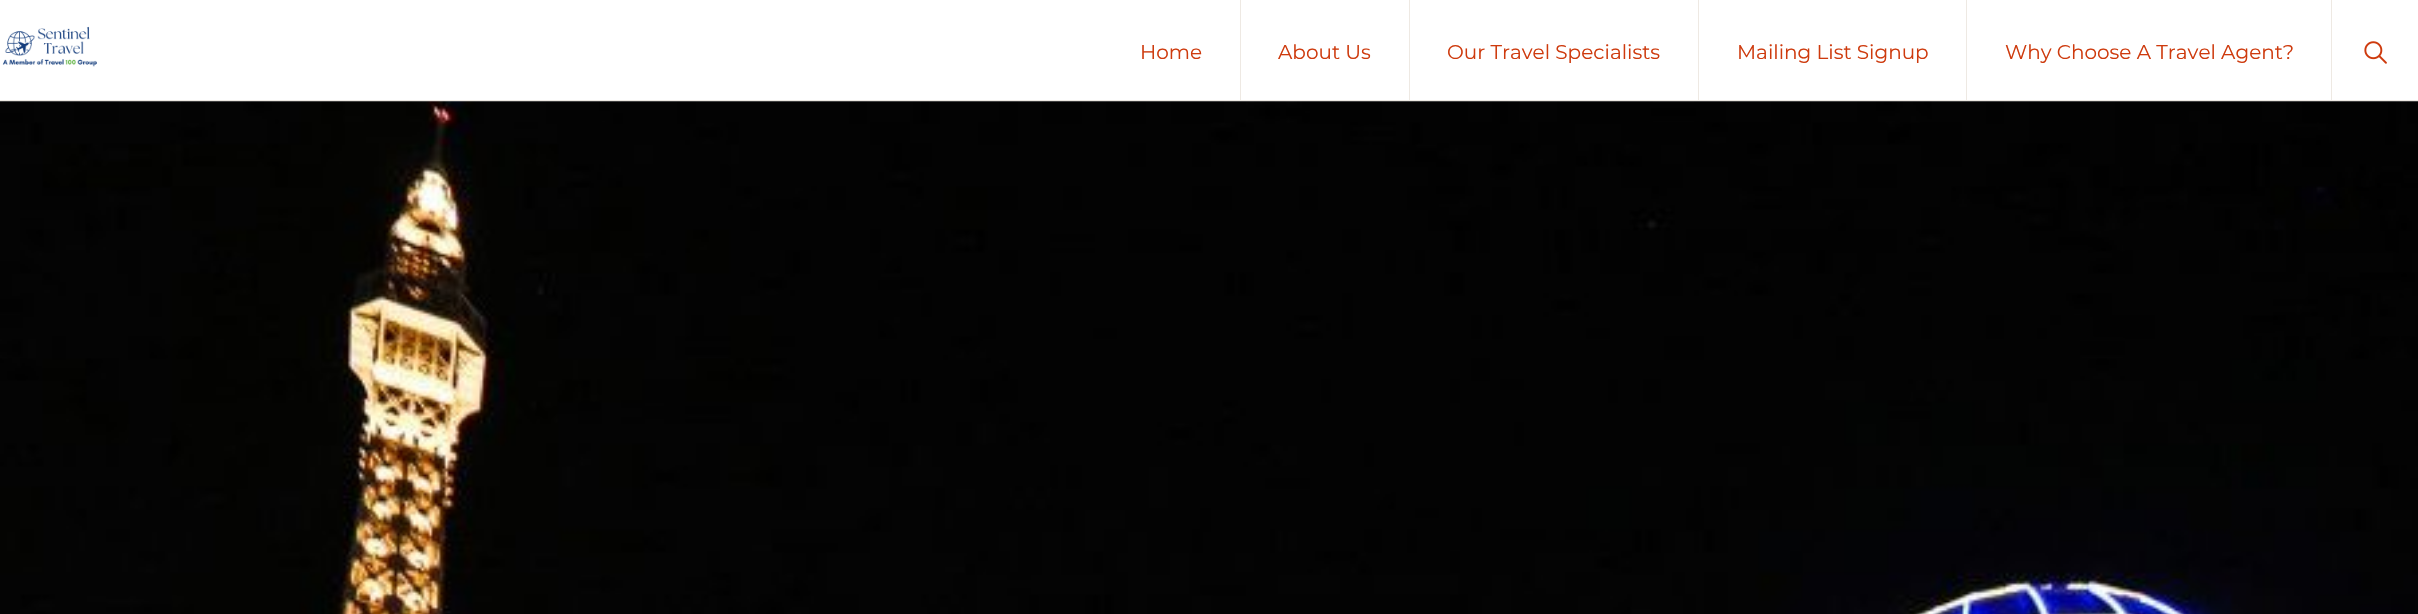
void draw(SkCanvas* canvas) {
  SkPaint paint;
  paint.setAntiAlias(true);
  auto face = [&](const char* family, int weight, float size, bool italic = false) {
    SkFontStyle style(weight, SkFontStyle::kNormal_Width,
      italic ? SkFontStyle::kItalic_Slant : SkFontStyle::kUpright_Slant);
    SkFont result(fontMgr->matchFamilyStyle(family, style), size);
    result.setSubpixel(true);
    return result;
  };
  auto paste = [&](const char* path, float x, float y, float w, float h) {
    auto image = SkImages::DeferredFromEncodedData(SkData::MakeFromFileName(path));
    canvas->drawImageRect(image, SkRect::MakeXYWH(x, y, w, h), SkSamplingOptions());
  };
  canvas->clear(0xffffffff);
  paint.setColor(0xffeee9e3);
  canvas->drawRect(SkRect::MakeXYWH(0, 100, 2418, 1), paint);
  paste("img/1.png", 2, 26, 95, 41);
  {
    const struct { float x, y, w, h; SkColor color; } items[] = {
      {1240, 0, 1, 100, 0xffeee9e3},
      {1409, 0, 1, 100, 0xffeee9e3},
      {1698, 0, 1, 100, 0xffeee9e3},
      {1966, 0, 1, 100, 0xffeee9e3},
      {2331, 0, 1, 100, 0xffeee9e3},
    };
    for (auto [x, y, w, h, color] : items) {
      paint.setColor(color);
      canvas->drawRect(SkRect::MakeXYWH(x, y, w, h), paint);
    }
  }
  paste("img/2.png", 2364, 41, 23, 23);
  paste("img/3.png", 0, 101, 2418, 513);
  auto f0 = face("Montserrat", 400, 20);
  paint.setColor(0xffce3a0d);
  {
    const struct { const char* s; float x, y; } items[] = {
      {"Home", 1140, 59},
      {"About Us", 1278, 59},
      {"Our Travel Specialists", 1447, 59},
      {"Mailing List Signup", 1737, 59},
      {"Why Choose A Travel Agent?", 2005, 59},
    };
    for (auto [s, x, y] : items) {
      canvas->drawString(s, x, y, f0, paint);
    }
  }
}
